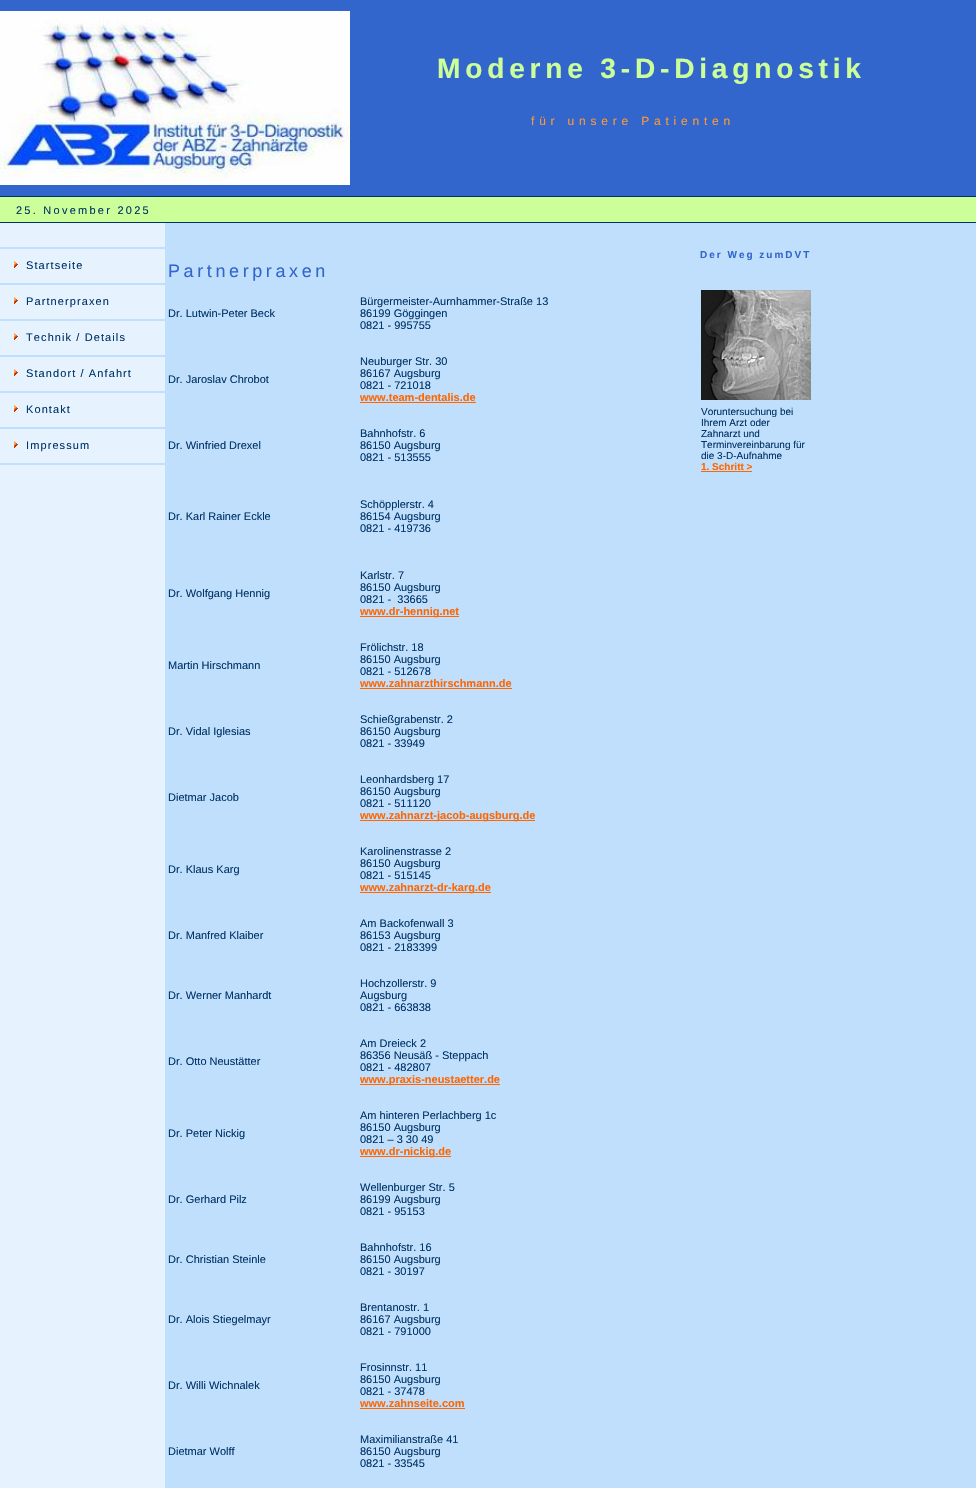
void draw(SkCanvas* canvas) {
  SkPaint paint;
  paint.setAntiAlias(true);
  auto face = [&](const char* family, int weight, float size, bool italic = false) {
    SkFontStyle style(weight, SkFontStyle::kNormal_Width,
      italic ? SkFontStyle::kItalic_Slant : SkFontStyle::kUpright_Slant);
    SkFont result(fontMgr->matchFamilyStyle(family, style), size);
    result.setSubpixel(true);
    return result;
  };
  auto writeSpaced = [&](const char* s, float x, float y, const SkFont& font, const SkPaint& ink, float letter, float word) {
    std::vector<SkGlyphID> glyphs(font.countText(s, strlen(s), SkTextEncoding::kUTF8));
    std::vector<float> xs(glyphs.size());
    font.textToGlyphs(s, strlen(s), SkTextEncoding::kUTF8, glyphs);
    font.getXPos(glyphs, xs, x);
    float extra = 0;
    for (size_t i = 0; i < glyphs.size(); i++) {
      xs[i] += extra;
      extra += letter + word * (glyphs[i] == font.unicharToGlyph(' '));
    }
    canvas->drawTextBlob(SkTextBlob::MakeFromPosHGlyphs(glyphs, xs, y, font), 0, 0, ink);
  };
  auto paste = [&](const char* path, float x, float y, float w, float h) {
    auto image = SkImages::DeferredFromEncodedData(SkData::MakeFromFileName(path));
    canvas->drawImageRect(image, SkRect::MakeXYWH(x, y, w, h), SkSamplingOptions());
  };
  canvas->clear(0xffc0dffd);
  paint.setColor(0xff3366cc);
  canvas->drawRect(SkRect::MakeXYWH(0, 0, 976, 196), paint);
  paste("img/1.png", 0, 11, 350, 174);
  {
    const struct { float x, y, w, h; SkColor color; } items[] = {
      {0, 196, 976, 1, 0xff003366},
      {0, 197, 976, 25, 0xffccff99},
      {0, 222, 976, 1, 0xff003366},
      {0, 223, 165, 1265, 0xffe6f3ff},
      {0, 247, 165, 2, 0xffc0dffd},
      {0, 283, 165, 2, 0xffc0dffd},
    };
    for (auto [x, y, w, h, color] : items) {
      paint.setColor(color);
      canvas->drawRect(SkRect::MakeXYWH(x, y, w, h), paint);
    }
  }
  paste("img/2.png", 14, 261, 4, 7);
  canvas->drawRect(SkRect::MakeXYWH(0, 319, 165, 2), paint);
  paste("img/2.png", 14, 297, 4, 7);
  canvas->drawRect(SkRect::MakeXYWH(0, 355, 165, 2), paint);
  paste("img/2.png", 14, 333, 4, 7);
  canvas->drawRect(SkRect::MakeXYWH(0, 391, 165, 2), paint);
  paste("img/2.png", 14, 369, 4, 7);
  canvas->drawRect(SkRect::MakeXYWH(0, 427, 165, 2), paint);
  paste("img/2.png", 14, 405, 4, 7);
  canvas->drawRect(SkRect::MakeXYWH(0, 463, 165, 2), paint);
  paste("img/2.png", 14, 441, 4, 7);
  {
    const struct { float x, y, w, h; SkColor color; } items[] = {
      {360, 402, 116, 1, 0xffff6600},
      {360, 616, 99, 1, 0xffff6600},
      {360, 688, 152, 1, 0xffff6600},
      {360, 820, 175, 1, 0xffff6600},
      {360, 892, 131, 1, 0xffff6600},
      {360, 1084, 140, 1, 0xffff6600},
      {360, 1156, 91, 1, 0xffff6600},
      {360, 1408, 105, 1, 0xffff6600},
    };
    for (auto [x, y, w, h, color] : items) {
      paint.setColor(color);
      canvas->drawRect(SkRect::MakeXYWH(x, y, w, h), paint);
    }
  }
  paste("img/3.png", 701, 290, 110, 110);
  canvas->drawRect(SkRect::MakeXYWH(701, 471, 51, 1), paint);
  auto f0 = face("Liberation Sans", 700, 28.1f);
  paint.setColor(0xffccff99);
  writeSpaced("Moderne 3-D-Diagnostik", 437, 78, f0, paint, 4.8f, 0);
  auto f1 = face("Liberation Sans", 400, 12);
  paint.setColor(0xffff9933);
  writeSpaced("für unsere Patienten", 531, 125, f1, paint, 4.8f, 0);
  auto f2 = face("Liberation Sans", 400, 11);
  paint.setColor(0xff003366);
  writeSpaced("25. November 2025", 16, 214, f2, paint, 2.25f, 0);
  {
    const struct { const char* s; float x, y; } items[] = {
      {"Startseite", 26, 269},
      {"Partnerpraxen", 26, 305},
      {"Technik / Details", 26, 341},
      {"Standort / Anfahrt", 26, 377},
      {"Kontakt", 26, 413},
      {"Impressum", 26, 449},
    };
    for (auto [s, x, y] : items) {
      writeSpaced(s, x, y, f2, paint, 1.1f, 0);
    }
  }
  auto f3 = face("Liberation Sans", 400, 18);
  paint.setColor(0xff3366cc);
  writeSpaced("Partnerpraxen", 168, 277, f3, paint, 3.6f, 0);
  paint.setColor(0xff003366);
  {
    const struct { const char* s; float x, y; } items[] = {
      {"Dr. Lutwin-Peter Beck", 168, 317},
      {"Bürgermeister-Aurnhammer-Straße 13", 360, 305},
      {"86199 Göggingen", 360, 317},
      {"0821 - 995755", 360, 329},
      {"Dr. Jaroslav Chrobot", 168, 383},
      {"Neuburger Str. 30", 360, 365},
      {"86167 Augsburg", 360, 377},
      {"0821 - 721018", 360, 389},
    };
    for (auto [s, x, y] : items) {
      canvas->drawString(s, x, y, f2, paint);
    }
  }
  auto f4 = face("Liberation Sans", 700, 11);
  paint.setColor(0xffff6600);
  canvas->drawString("www.team-dentalis.de", 360, 401, f4, paint);
  paint.setColor(0xff003366);
  {
    const struct { const char* s; float x, y; } items[] = {
      {"Dr. Winfried Drexel", 168, 449},
      {"Bahnhofstr. 6", 360, 437},
      {"86150 Augsburg", 360, 449},
      {"0821 - 513555", 360, 461},
      {"Dr. Karl Rainer Eckle", 168, 520},
      {"Schöpplerstr. 4", 360, 508},
      {"86154 Augsburg", 360, 520},
      {"0821 - 419736", 360, 532},
      {"Dr. Wolfgang Hennig", 168, 597},
      {"Karlstr. 7", 360, 579},
      {"86150 Augsburg", 360, 591},
      {"0821 -  33665", 360, 603},
    };
    for (auto [s, x, y] : items) {
      canvas->drawString(s, x, y, f2, paint);
    }
  }
  paint.setColor(0xffff6600);
  canvas->drawString("www.dr-hennig.net", 360, 615, f4, paint);
  paint.setColor(0xff003366);
  {
    const struct { const char* s; float x, y; } items[] = {
      {"Martin Hirschmann", 168, 669},
      {"Frölichstr. 18", 360, 651},
      {"86150 Augsburg", 360, 663},
      {"0821 - 512678", 360, 675},
    };
    for (auto [s, x, y] : items) {
      canvas->drawString(s, x, y, f2, paint);
    }
  }
  paint.setColor(0xffff6600);
  canvas->drawString("www.zahnarzthirschmann.de", 360, 687, f4, paint);
  paint.setColor(0xff003366);
  {
    const struct { const char* s; float x, y; } items[] = {
      {"Dr. Vidal Iglesias", 168, 735},
      {"Schießgrabenstr. 2", 360, 723},
      {"86150 Augsburg", 360, 735},
      {"0821 - 33949", 360, 747},
      {"Dietmar Jacob", 168, 801},
      {"Leonhardsberg 17", 360, 783},
      {"86150 Augsburg", 360, 795},
      {"0821 - 511120", 360, 807},
    };
    for (auto [s, x, y] : items) {
      canvas->drawString(s, x, y, f2, paint);
    }
  }
  paint.setColor(0xffff6600);
  canvas->drawString("www.zahnarzt-jacob-augsburg.de", 360, 819, f4, paint);
  paint.setColor(0xff003366);
  {
    const struct { const char* s; float x, y; } items[] = {
      {"Dr. Klaus Karg", 168, 873},
      {"Karolinenstrasse 2", 360, 855},
      {"86150 Augsburg", 360, 867},
      {"0821 - 515145", 360, 879},
    };
    for (auto [s, x, y] : items) {
      canvas->drawString(s, x, y, f2, paint);
    }
  }
  paint.setColor(0xffff6600);
  canvas->drawString("www.zahnarzt-dr-karg.de", 360, 891, f4, paint);
  paint.setColor(0xff003366);
  {
    const struct { const char* s; float x, y; } items[] = {
      {"Dr. Manfred Klaiber", 168, 939},
      {"Am Backofenwall 3", 360, 927},
      {"86153 Augsburg", 360, 939},
      {"0821 - 2183399", 360, 951},
      {"Dr. Werner Manhardt", 168, 999},
      {"Hochzollerstr. 9", 360, 987},
      {"Augsburg", 360, 999},
      {"0821 - 663838", 360, 1011},
      {"Dr. Otto Neustätter", 168, 1065},
      {"Am Dreieck 2", 360, 1047},
      {"86356 Neusäß - Steppach", 360, 1059},
      {"0821 - 482807", 360, 1071},
    };
    for (auto [s, x, y] : items) {
      canvas->drawString(s, x, y, f2, paint);
    }
  }
  paint.setColor(0xffff6600);
  canvas->drawString("www.praxis-neustaetter.de", 360, 1083, f4, paint);
  paint.setColor(0xff003366);
  {
    const struct { const char* s; float x, y; } items[] = {
      {"Dr. Peter Nickig", 168, 1137},
      {"Am hinteren Perlachberg 1c", 360, 1119},
      {"86150 Augsburg", 360, 1131},
      {"0821 – 3 30 49", 360, 1143},
    };
    for (auto [s, x, y] : items) {
      canvas->drawString(s, x, y, f2, paint);
    }
  }
  paint.setColor(0xffff6600);
  canvas->drawString("www.dr-nickig.de", 360, 1155, f4, paint);
  paint.setColor(0xff003366);
  {
    const struct { const char* s; float x, y; } items[] = {
      {"Dr. Gerhard Pilz", 168, 1203},
      {"Wellenburger Str. 5", 360, 1191},
      {"86199 Augsburg", 360, 1203},
      {"0821 - 95153", 360, 1215},
      {"Dr. Christian Steinle", 168, 1263},
      {"Bahnhofstr. 16", 360, 1251},
      {"86150 Augsburg", 360, 1263},
      {"0821 - 30197", 360, 1275},
      {"Dr. Alois Stiegelmayr", 168, 1323},
      {"Brentanostr. 1", 360, 1311},
      {"86167 Augsburg", 360, 1323},
      {"0821 - 791000", 360, 1335},
      {"Dr. Willi Wichnalek", 168, 1389},
      {"Frosinnstr. 11", 360, 1371},
      {"86150 Augsburg", 360, 1383},
      {"0821 - 37478", 360, 1395},
    };
    for (auto [s, x, y] : items) {
      canvas->drawString(s, x, y, f2, paint);
    }
  }
  paint.setColor(0xffff6600);
  canvas->drawString("www.zahnseite.com", 360, 1407, f4, paint);
  paint.setColor(0xff003366);
  {
    const struct { const char* s; float x, y; } items[] = {
      {"Dietmar Wolff", 168, 1455},
      {"Maximilianstraße 41", 360, 1443},
      {"86150 Augsburg", 360, 1455},
      {"0821 - 33545", 360, 1467},
    };
    for (auto [s, x, y] : items) {
      canvas->drawString(s, x, y, f2, paint);
    }
  }
  auto f5 = face("Liberation Sans", 700, 10);
  paint.setColor(0xff3366cc);
  writeSpaced("Der Weg zumDVT", 700, 258, f5, paint, 2, 0);
  auto f6 = face("Liberation Sans", 400, 10);
  paint.setColor(0xff003366);
  {
    const struct { const char* s; float x, y; } items[] = {
      {"Voruntersuchung bei", 701, 415},
      {"Ihrem Arzt oder", 701, 426},
      {"Zahnarzt und", 701, 437},
      {"Terminvereinbarung für", 701, 448},
      {"die 3-D-Aufnahme", 701, 459},
    };
    for (auto [s, x, y] : items) {
      canvas->drawString(s, x, y, f6, paint);
    }
  }
  paint.setColor(0xffff6600);
  canvas->drawString("1. Schritt >", 701, 470, f5, paint);
}
